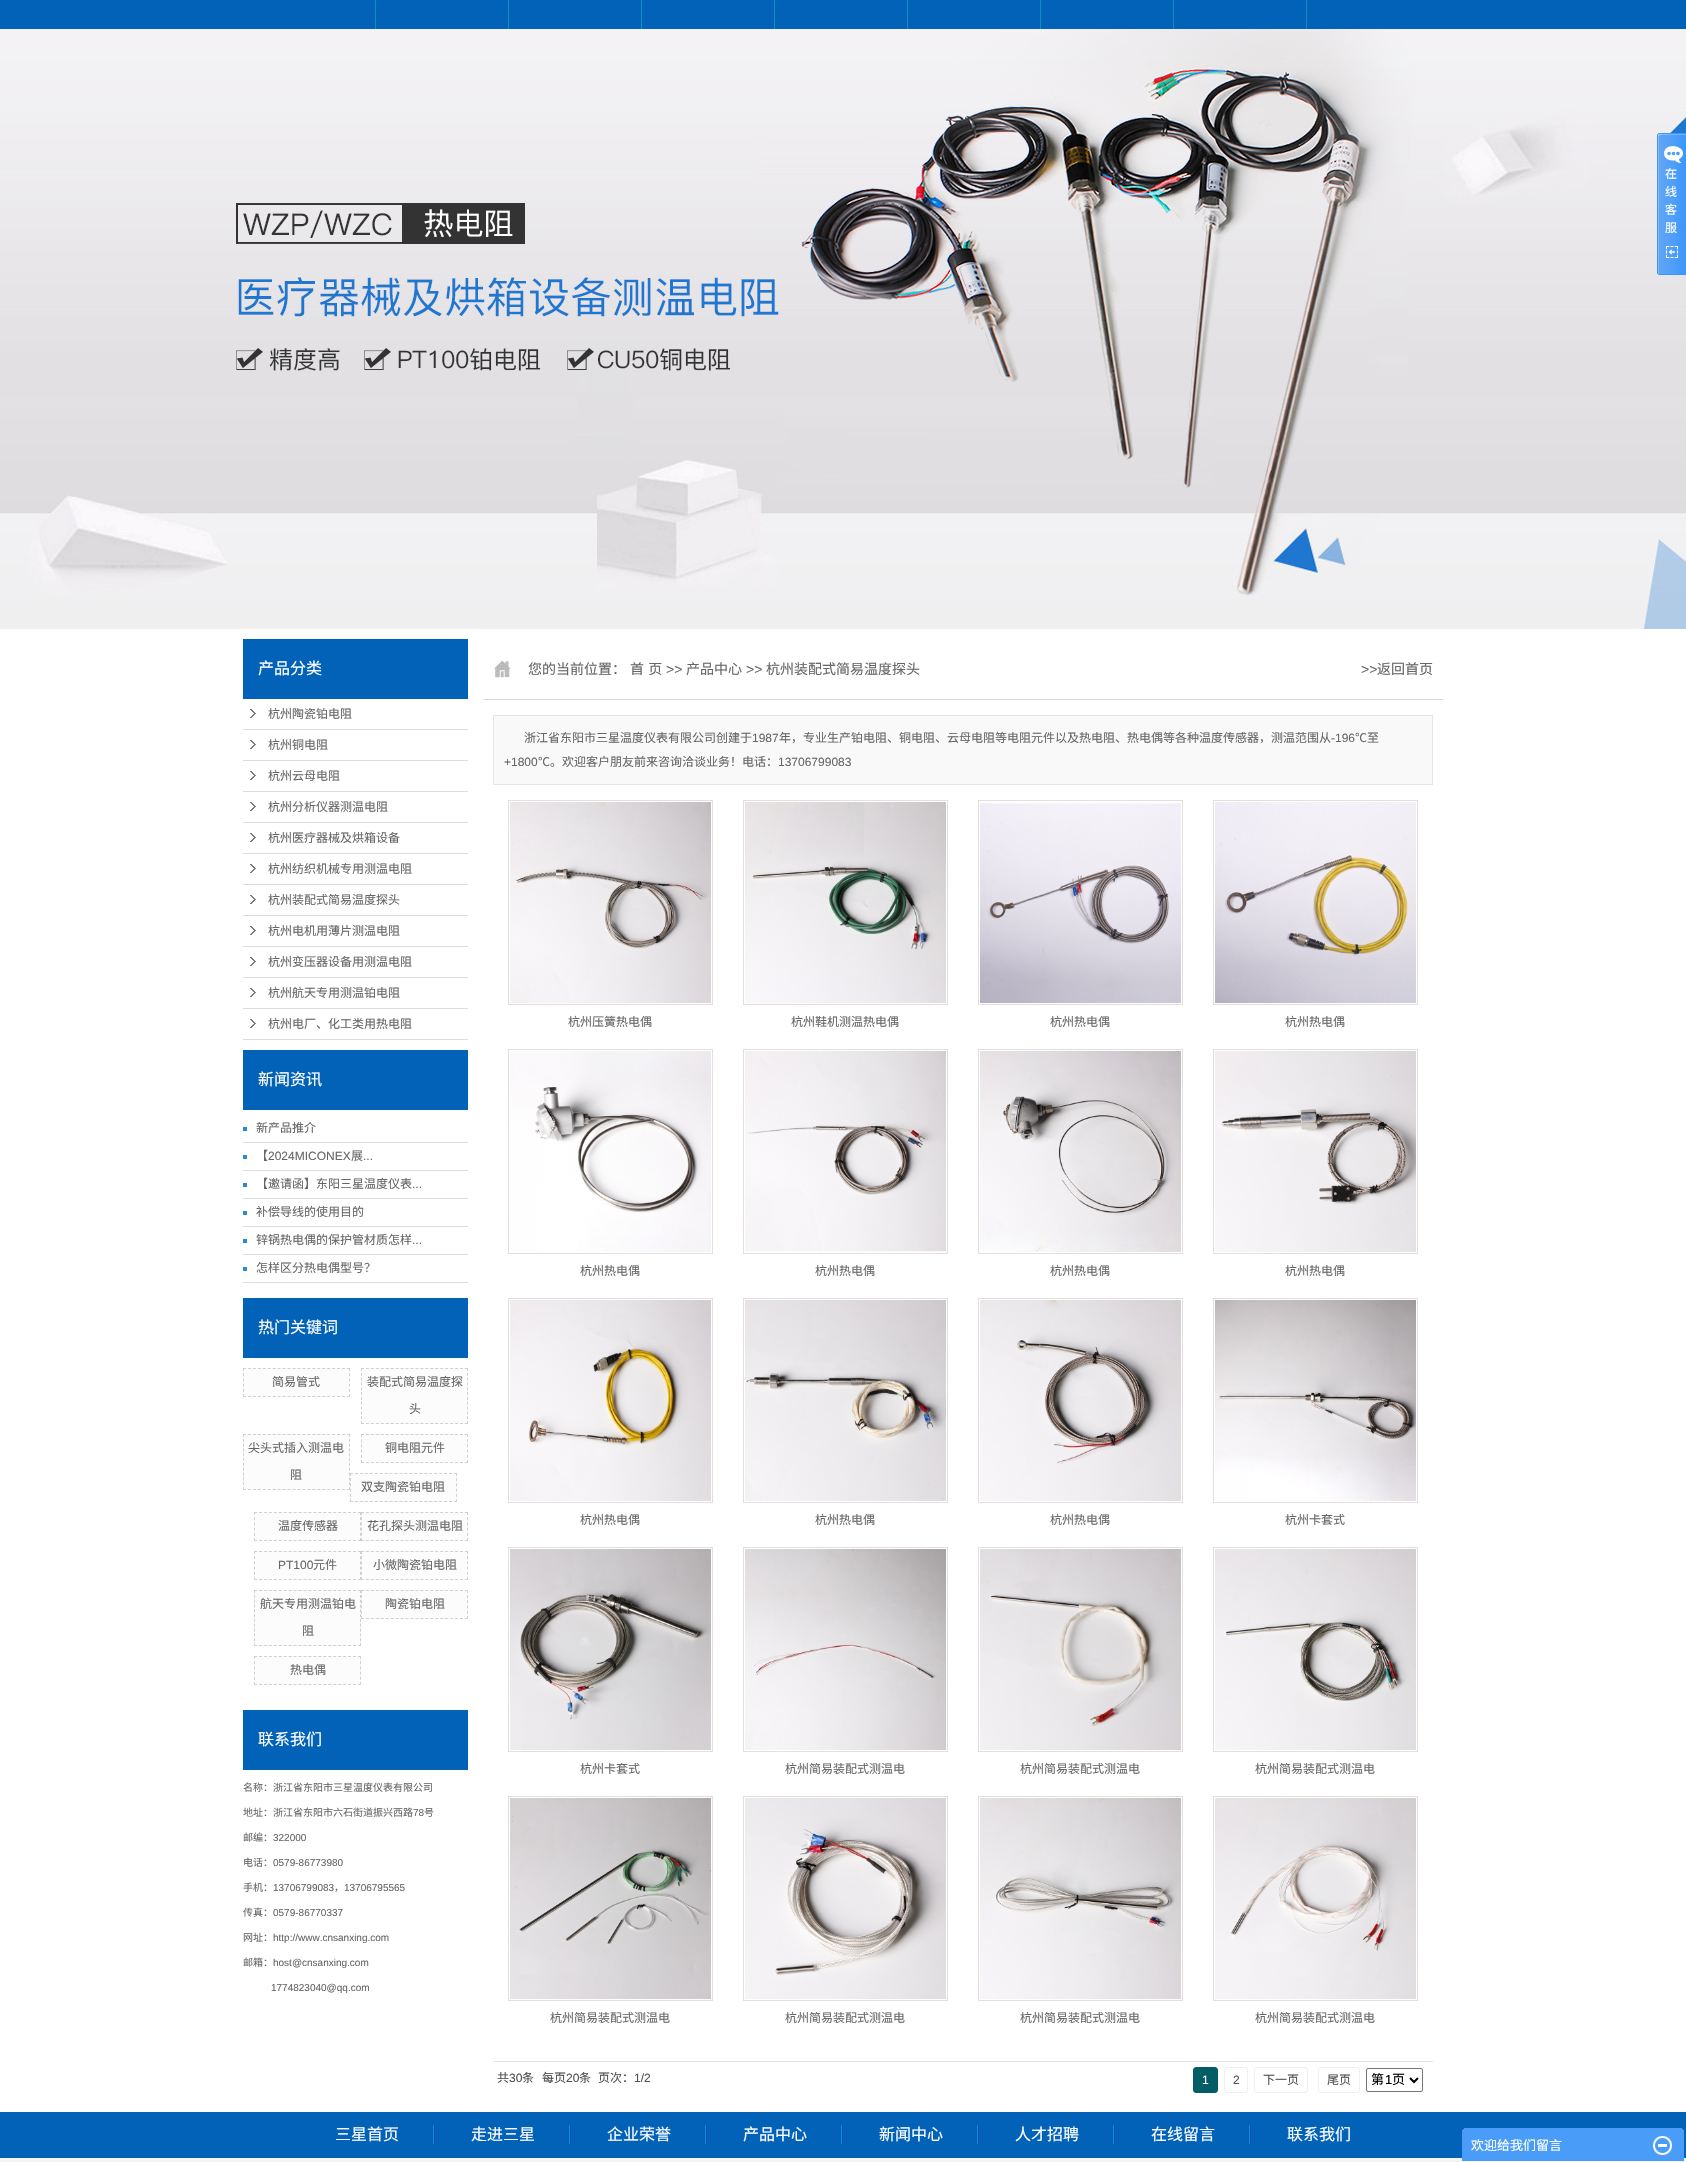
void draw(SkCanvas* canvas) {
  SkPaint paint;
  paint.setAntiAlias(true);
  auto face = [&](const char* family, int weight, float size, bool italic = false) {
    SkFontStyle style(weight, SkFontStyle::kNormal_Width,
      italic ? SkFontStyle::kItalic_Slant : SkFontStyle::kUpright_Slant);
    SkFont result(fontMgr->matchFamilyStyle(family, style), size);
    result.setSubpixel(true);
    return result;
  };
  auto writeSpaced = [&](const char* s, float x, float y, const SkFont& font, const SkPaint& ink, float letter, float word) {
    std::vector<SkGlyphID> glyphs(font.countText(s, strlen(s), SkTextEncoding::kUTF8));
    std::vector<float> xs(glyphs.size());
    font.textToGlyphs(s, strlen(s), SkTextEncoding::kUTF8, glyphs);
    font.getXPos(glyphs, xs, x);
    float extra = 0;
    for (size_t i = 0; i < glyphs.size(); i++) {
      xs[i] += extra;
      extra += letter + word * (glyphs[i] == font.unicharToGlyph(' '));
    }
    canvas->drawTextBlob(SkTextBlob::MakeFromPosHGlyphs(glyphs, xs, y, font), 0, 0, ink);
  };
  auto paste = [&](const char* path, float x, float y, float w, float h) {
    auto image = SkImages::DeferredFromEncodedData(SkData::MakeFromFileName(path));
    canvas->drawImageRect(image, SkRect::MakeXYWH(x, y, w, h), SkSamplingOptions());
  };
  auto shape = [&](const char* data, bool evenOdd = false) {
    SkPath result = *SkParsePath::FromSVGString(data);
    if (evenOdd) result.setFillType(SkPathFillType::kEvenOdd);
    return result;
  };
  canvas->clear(0xffffffff);
  {
    const struct { float x, y, w, h; SkColor color; } items[] = {
      {0, 0, 1686, 29, 0xff0262b8},
      {375, 0, 1, 29, 0xff118cc5},
      {508, 0, 1, 29, 0xff118cc5},
      {641, 0, 1, 29, 0xff118cc5},
      {774, 0, 1, 29, 0xff118cc5},
      {907, 0, 1, 29, 0xff118cc5},
      {1040, 0, 1, 29, 0xff118cc5},
      {1173, 0, 1, 29, 0xff118cc5},
      {1306, 0, 1, 29, 0xff118cc5},
    };
    for (auto [x, y, w, h, color] : items) {
      paint.setColor(color);
      canvas->drawRect(SkRect::MakeXYWH(x, y, w, h), paint);
    }
  }
  paste("img/1.png", 0, 29, 1686, 600);
  paste("img/2.png", 1657, 133, 29, 142);
  paste("img/3.png", 1666, 246, 12, 12);
  paint.setColor(0xff0262b8);
  canvas->drawRect(SkRect::MakeXYWH(243, 639, 225, 60), paint);
  paste("img/4.png", 250, 709, 6, 9);
  paint.setColor(0xffdddddd);
  canvas->drawRect(SkRect::MakeXYWH(243, 729, 225, 1), paint);
  paste("img/4.png", 250, 740, 6, 9);
  canvas->drawRect(SkRect::MakeXYWH(243, 760, 225, 1), paint);
  paste("img/4.png", 250, 771, 6, 9);
  canvas->drawRect(SkRect::MakeXYWH(243, 791, 225, 1), paint);
  paste("img/4.png", 250, 802, 6, 9);
  canvas->drawRect(SkRect::MakeXYWH(243, 822, 225, 1), paint);
  paste("img/4.png", 250, 833, 6, 9);
  canvas->drawRect(SkRect::MakeXYWH(243, 853, 225, 1), paint);
  paste("img/4.png", 250, 864, 6, 9);
  canvas->drawRect(SkRect::MakeXYWH(243, 884, 225, 1), paint);
  paste("img/4.png", 250, 895, 6, 9);
  canvas->drawRect(SkRect::MakeXYWH(243, 915, 225, 1), paint);
  paste("img/4.png", 250, 926, 6, 9);
  canvas->drawRect(SkRect::MakeXYWH(243, 946, 225, 1), paint);
  paste("img/4.png", 250, 957, 6, 9);
  canvas->drawRect(SkRect::MakeXYWH(243, 977, 225, 1), paint);
  paste("img/4.png", 250, 988, 6, 9);
  canvas->drawRect(SkRect::MakeXYWH(243, 1008, 225, 1), paint);
  paste("img/4.png", 250, 1019, 6, 9);
  canvas->drawRect(SkRect::MakeXYWH(243, 1039, 225, 1), paint);
  paint.setColor(0xff0262b8);
  canvas->drawRect(SkRect::MakeXYWH(243, 1050, 225, 60), paint);
  paste("img/5.png", 243, 1127, 4, 4);
  paint.setColor(0xffdddddd);
  canvas->drawRect(SkRect::MakeXYWH(243, 1142, 225, 1), paint);
  paste("img/5.png", 243, 1155, 4, 4);
  canvas->drawRect(SkRect::MakeXYWH(243, 1170, 225, 1), paint);
  paste("img/5.png", 243, 1183, 4, 4);
  canvas->drawRect(SkRect::MakeXYWH(243, 1198, 225, 1), paint);
  paste("img/5.png", 243, 1211, 4, 4);
  canvas->drawRect(SkRect::MakeXYWH(243, 1226, 225, 1), paint);
  paste("img/5.png", 243, 1239, 4, 4);
  canvas->drawRect(SkRect::MakeXYWH(243, 1254, 225, 1), paint);
  paste("img/5.png", 243, 1267, 4, 4);
  {
    const struct { float x, y, w, h; SkColor color; } items[] = {
      {243, 1282, 225, 1, 0xffdddddd},
      {243, 1298, 225, 60, 0xff0262b8},
      {243, 1368, 107, 29, 0xfffcfcfc},
    };
    for (auto [x, y, w, h, color] : items) {
      paint.setColor(color);
      canvas->drawRect(SkRect::MakeXYWH(x, y, w, h), paint);
    }
  }
  paint.setStroke(true);
  paint.setStrokeWidth(1);
  paint.setColor(0xffd0d0d0);
  paint.setPathEffect(SkDashPathEffect::Make({{3, 1.95f}}, 0));
  canvas->drawPath(shape("M243 1368.5H350"), paint);
  paint.setPathEffect(nullptr);
  paint.setPathEffect(SkDashPathEffect::Make({{3, 2.2f}}, 0));
  canvas->drawPath(shape("M349.5 1368V1397"), paint);
  paint.setPathEffect(nullptr);
  paint.setPathEffect(SkDashPathEffect::Make({{3, 1.95f}}, 0));
  canvas->drawPath(shape("M243 1396.5H350"), paint);
  paint.setPathEffect(nullptr);
  paint.setPathEffect(SkDashPathEffect::Make({{3, 2.2f}}, 0));
  canvas->drawPath(shape("M243.5 1368V1397"), paint);
  paint.setPathEffect(nullptr);
  paint.setStroke(false);
  paint.setColor(0xfffcfcfc);
  canvas->drawRect(SkRect::MakeXYWH(361, 1368, 107, 56), paint);
  paint.setStroke(true);
  paint.setColor(0xffd0d0d0);
  paint.setPathEffect(SkDashPathEffect::Make({{3, 1.95f}}, 0));
  canvas->drawPath(shape("M361 1368.5H468"), paint);
  paint.setPathEffect(nullptr);
  paint.setPathEffect(SkDashPathEffect::Make({{3, 1.82f}}, 0));
  canvas->drawPath(shape("M467.5 1368V1424"), paint);
  paint.setPathEffect(nullptr);
  paint.setPathEffect(SkDashPathEffect::Make({{3, 1.95f}}, 0));
  canvas->drawPath(shape("M361 1423.5H468"), paint);
  paint.setPathEffect(nullptr);
  paint.setPathEffect(SkDashPathEffect::Make({{3, 1.82f}}, 0));
  canvas->drawPath(shape("M361.5 1368V1424"), paint);
  paint.setPathEffect(nullptr);
  paint.setStroke(false);
  paint.setColor(0xfffcfcfc);
  canvas->drawRect(SkRect::MakeXYWH(243, 1434, 107, 56), paint);
  paint.setStroke(true);
  paint.setColor(0xffd0d0d0);
  paint.setPathEffect(SkDashPathEffect::Make({{3, 1.95f}}, 0));
  canvas->drawPath(shape("M243 1434.5H350"), paint);
  paint.setPathEffect(nullptr);
  paint.setPathEffect(SkDashPathEffect::Make({{3, 1.82f}}, 0));
  canvas->drawPath(shape("M349.5 1434V1490"), paint);
  paint.setPathEffect(nullptr);
  paint.setPathEffect(SkDashPathEffect::Make({{3, 1.95f}}, 0));
  canvas->drawPath(shape("M243 1489.5H350"), paint);
  paint.setPathEffect(nullptr);
  paint.setPathEffect(SkDashPathEffect::Make({{3, 1.82f}}, 0));
  canvas->drawPath(shape("M243.5 1434V1490"), paint);
  paint.setPathEffect(nullptr);
  paint.setStroke(false);
  paint.setColor(0xfffcfcfc);
  canvas->drawRect(SkRect::MakeXYWH(361, 1434, 107, 29), paint);
  paint.setStroke(true);
  paint.setColor(0xffd0d0d0);
  paint.setPathEffect(SkDashPathEffect::Make({{3, 1.95f}}, 0));
  canvas->drawPath(shape("M361 1434.5H468"), paint);
  paint.setPathEffect(nullptr);
  paint.setPathEffect(SkDashPathEffect::Make({{3, 2.2f}}, 0));
  canvas->drawPath(shape("M467.5 1434V1463"), paint);
  paint.setPathEffect(nullptr);
  paint.setPathEffect(SkDashPathEffect::Make({{3, 1.95f}}, 0));
  canvas->drawPath(shape("M361 1462.5H468"), paint);
  paint.setPathEffect(nullptr);
  paint.setPathEffect(SkDashPathEffect::Make({{3, 2.2f}}, 0));
  canvas->drawPath(shape("M361.5 1434V1463"), paint);
  paint.setPathEffect(nullptr);
  paint.setStroke(false);
  paint.setColor(0xfffcfcfc);
  canvas->drawRect(SkRect::MakeXYWH(350, 1473, 107, 29), paint);
  paint.setStroke(true);
  paint.setColor(0xffd0d0d0);
  paint.setPathEffect(SkDashPathEffect::Make({{3, 1.95f}}, 0));
  canvas->drawPath(shape("M350 1473.5H457"), paint);
  paint.setPathEffect(nullptr);
  paint.setPathEffect(SkDashPathEffect::Make({{3, 2.2f}}, 0));
  canvas->drawPath(shape("M456.5 1473V1502"), paint);
  paint.setPathEffect(nullptr);
  paint.setPathEffect(SkDashPathEffect::Make({{3, 1.95f}}, 0));
  canvas->drawPath(shape("M350 1501.5H457"), paint);
  paint.setPathEffect(nullptr);
  paint.setPathEffect(SkDashPathEffect::Make({{3, 2.2f}}, 0));
  canvas->drawPath(shape("M350.5 1473V1502"), paint);
  paint.setPathEffect(nullptr);
  paint.setStroke(false);
  paint.setColor(0xfffcfcfc);
  canvas->drawRect(SkRect::MakeXYWH(254, 1512, 214, 29), paint);
  paint.setStroke(true);
  paint.setColor(0xffd0d0d0);
  paint.setPathEffect(SkDashPathEffect::Make({{3, 1.95f}}, 0));
  canvas->drawPath(shape("M254 1512.5H361"), paint);
  paint.setPathEffect(nullptr);
  paint.setPathEffect(SkDashPathEffect::Make({{3, 2.2f}}, 0));
  canvas->drawPath(shape("M360.5 1512V1541"), paint);
  paint.setPathEffect(nullptr);
  paint.setPathEffect(SkDashPathEffect::Make({{3, 1.95f}}, 0));
  canvas->drawPath(shape("M254 1540.5H361"), paint);
  paint.setPathEffect(nullptr);
  paint.setPathEffect(SkDashPathEffect::Make({{3, 2.2f}}, 0));
  canvas->drawPath(shape("M254.5 1512V1541"), paint);
  paint.setPathEffect(nullptr);
  paint.setPathEffect(SkDashPathEffect::Make({{3, 1.95f}}, 0));
  canvas->drawPath(shape("M361 1512.5H468"), paint);
  paint.setPathEffect(nullptr);
  paint.setPathEffect(SkDashPathEffect::Make({{3, 2.2f}}, 0));
  canvas->drawPath(shape("M467.5 1512V1541"), paint);
  paint.setPathEffect(nullptr);
  paint.setPathEffect(SkDashPathEffect::Make({{3, 1.95f}}, 0));
  canvas->drawPath(shape("M361 1540.5H468"), paint);
  paint.setPathEffect(nullptr);
  paint.setPathEffect(SkDashPathEffect::Make({{3, 2.2f}}, 0));
  canvas->drawPath(shape("M361.5 1512V1541"), paint);
  paint.setPathEffect(nullptr);
  paint.setStroke(false);
  paint.setColor(0xfffcfcfc);
  canvas->drawRect(SkRect::MakeXYWH(254, 1551, 214, 29), paint);
  paint.setStroke(true);
  paint.setColor(0xffd0d0d0);
  paint.setPathEffect(SkDashPathEffect::Make({{3, 1.95f}}, 0));
  canvas->drawPath(shape("M254 1551.5H361"), paint);
  paint.setPathEffect(nullptr);
  paint.setPathEffect(SkDashPathEffect::Make({{3, 2.2f}}, 0));
  canvas->drawPath(shape("M360.5 1551V1580"), paint);
  paint.setPathEffect(nullptr);
  paint.setPathEffect(SkDashPathEffect::Make({{3, 1.95f}}, 0));
  canvas->drawPath(shape("M254 1579.5H361"), paint);
  paint.setPathEffect(nullptr);
  paint.setPathEffect(SkDashPathEffect::Make({{3, 2.2f}}, 0));
  canvas->drawPath(shape("M254.5 1551V1580"), paint);
  paint.setPathEffect(nullptr);
  paint.setPathEffect(SkDashPathEffect::Make({{3, 1.95f}}, 0));
  canvas->drawPath(shape("M361 1551.5H468"), paint);
  paint.setPathEffect(nullptr);
  paint.setPathEffect(SkDashPathEffect::Make({{3, 2.2f}}, 0));
  canvas->drawPath(shape("M467.5 1551V1580"), paint);
  paint.setPathEffect(nullptr);
  paint.setPathEffect(SkDashPathEffect::Make({{3, 1.95f}}, 0));
  canvas->drawPath(shape("M361 1579.5H468"), paint);
  paint.setPathEffect(nullptr);
  paint.setPathEffect(SkDashPathEffect::Make({{3, 2.2f}}, 0));
  canvas->drawPath(shape("M361.5 1551V1580"), paint);
  paint.setPathEffect(nullptr);
  paint.setStroke(false);
  paint.setColor(0xfffcfcfc);
  canvas->drawRect(SkRect::MakeXYWH(254, 1590, 107, 56), paint);
  paint.setStroke(true);
  paint.setColor(0xffd0d0d0);
  paint.setPathEffect(SkDashPathEffect::Make({{3, 1.95f}}, 0));
  canvas->drawPath(shape("M254 1590.5H361"), paint);
  paint.setPathEffect(nullptr);
  paint.setPathEffect(SkDashPathEffect::Make({{3, 1.82f}}, 0));
  canvas->drawPath(shape("M360.5 1590V1646"), paint);
  paint.setPathEffect(nullptr);
  paint.setPathEffect(SkDashPathEffect::Make({{3, 1.95f}}, 0));
  canvas->drawPath(shape("M254 1645.5H361"), paint);
  paint.setPathEffect(nullptr);
  paint.setPathEffect(SkDashPathEffect::Make({{3, 1.82f}}, 0));
  canvas->drawPath(shape("M254.5 1590V1646"), paint);
  paint.setPathEffect(nullptr);
  paint.setStroke(false);
  paint.setColor(0xfffcfcfc);
  canvas->drawRect(SkRect::MakeXYWH(361, 1590, 107, 29), paint);
  paint.setStroke(true);
  paint.setColor(0xffd0d0d0);
  paint.setPathEffect(SkDashPathEffect::Make({{3, 1.95f}}, 0));
  canvas->drawPath(shape("M361 1590.5H468"), paint);
  paint.setPathEffect(nullptr);
  paint.setPathEffect(SkDashPathEffect::Make({{3, 2.2f}}, 0));
  canvas->drawPath(shape("M467.5 1590V1619"), paint);
  paint.setPathEffect(nullptr);
  paint.setPathEffect(SkDashPathEffect::Make({{3, 1.95f}}, 0));
  canvas->drawPath(shape("M361 1618.5H468"), paint);
  paint.setPathEffect(nullptr);
  paint.setPathEffect(SkDashPathEffect::Make({{3, 2.2f}}, 0));
  canvas->drawPath(shape("M361.5 1590V1619"), paint);
  paint.setPathEffect(nullptr);
  paint.setStroke(false);
  paint.setColor(0xfffcfcfc);
  canvas->drawRect(SkRect::MakeXYWH(254, 1656, 107, 29), paint);
  paint.setStroke(true);
  paint.setColor(0xffd0d0d0);
  paint.setPathEffect(SkDashPathEffect::Make({{3, 1.95f}}, 0));
  canvas->drawPath(shape("M254 1656.5H361"), paint);
  paint.setPathEffect(nullptr);
  paint.setPathEffect(SkDashPathEffect::Make({{3, 2.2f}}, 0));
  canvas->drawPath(shape("M360.5 1656V1685"), paint);
  paint.setPathEffect(nullptr);
  paint.setPathEffect(SkDashPathEffect::Make({{3, 1.95f}}, 0));
  canvas->drawPath(shape("M254 1684.5H361"), paint);
  paint.setPathEffect(nullptr);
  paint.setPathEffect(SkDashPathEffect::Make({{3, 2.2f}}, 0));
  canvas->drawPath(shape("M254.5 1656V1685"), paint);
  paint.setPathEffect(nullptr);
  paint.setStroke(false);
  paint.setColor(0xff0262b8);
  canvas->drawRect(SkRect::MakeXYWH(243, 1710, 225, 60), paint);
  paint.setColor(0xffd9d9d9);
  canvas->drawRect(SkRect::MakeXYWH(483, 699, 960, 1), paint);
  paste("img/6.png", 494, 660, 17, 18);
  paint.setColor(0xfff9f9f9);
  canvas->drawRect(SkRect::MakeXYWH(493.5f, 715.5f, 939, 69), paint);
  paint.setStroke(true);
  paint.setColor(0xffe5e5e5);
  canvas->drawRect(SkRect::MakeXYWH(493.5f, 715.5f, 939, 69), paint);
  paint.setColor(0xffe0e1dc);
  canvas->drawRect(SkRect::MakeXYWH(508.5f, 800.5f, 204, 204), paint);
  paste("img/7.png", 510, 802, 201, 201);
  canvas->drawRect(SkRect::MakeXYWH(743.5f, 800.5f, 204, 204), paint);
  paste("img/8.png", 745, 802, 201, 201);
  canvas->drawRect(SkRect::MakeXYWH(978.5f, 800.5f, 204, 204), paint);
  paste("img/9.png", 980, 803, 201, 200);
  canvas->drawRect(SkRect::MakeXYWH(1213.5f, 800.5f, 204, 204), paint);
  paste("img/10.png", 1215, 802, 201, 201);
  canvas->drawRect(SkRect::MakeXYWH(508.5f, 1049.5f, 204, 204), paint);
  paste("img/11.png", 510, 1051, 201, 201);
  canvas->drawRect(SkRect::MakeXYWH(743.5f, 1049.5f, 204, 204), paint);
  paste("img/12.png", 745, 1051, 201, 201);
  canvas->drawRect(SkRect::MakeXYWH(978.5f, 1049.5f, 204, 204), paint);
  paste("img/13.png", 980, 1051, 201, 201);
  canvas->drawRect(SkRect::MakeXYWH(1213.5f, 1049.5f, 204, 204), paint);
  paste("img/14.png", 1215, 1051, 201, 201);
  canvas->drawRect(SkRect::MakeXYWH(508.5f, 1298.5f, 204, 204), paint);
  paste("img/15.png", 510, 1300, 201, 201);
  canvas->drawRect(SkRect::MakeXYWH(743.5f, 1298.5f, 204, 204), paint);
  paste("img/16.png", 745, 1300, 201, 201);
  canvas->drawRect(SkRect::MakeXYWH(978.5f, 1298.5f, 204, 204), paint);
  paste("img/17.png", 980, 1300, 201, 201);
  canvas->drawRect(SkRect::MakeXYWH(1213.5f, 1298.5f, 204, 204), paint);
  paste("img/18.png", 1215, 1300, 201, 201);
  canvas->drawRect(SkRect::MakeXYWH(508.5f, 1547.5f, 204, 204), paint);
  paste("img/19.png", 510, 1549, 201, 201);
  canvas->drawRect(SkRect::MakeXYWH(743.5f, 1547.5f, 204, 204), paint);
  paste("img/20.png", 745, 1549, 201, 201);
  canvas->drawRect(SkRect::MakeXYWH(978.5f, 1547.5f, 204, 204), paint);
  paste("img/21.png", 980, 1549, 201, 201);
  canvas->drawRect(SkRect::MakeXYWH(1213.5f, 1547.5f, 204, 204), paint);
  paste("img/22.png", 1215, 1549, 201, 201);
  canvas->drawRect(SkRect::MakeXYWH(508.5f, 1796.5f, 204, 204), paint);
  paste("img/23.png", 510, 1798, 201, 201);
  canvas->drawRect(SkRect::MakeXYWH(743.5f, 1796.5f, 204, 204), paint);
  paste("img/24.png", 745, 1798, 201, 201);
  canvas->drawRect(SkRect::MakeXYWH(978.5f, 1796.5f, 204, 204), paint);
  paste("img/25.png", 980, 1798, 201, 201);
  canvas->drawRect(SkRect::MakeXYWH(1213.5f, 1796.5f, 204, 204), paint);
  paste("img/26.png", 1215, 1798, 201, 201);
  paint.setStroke(false);
  paint.setColor(0xffe2e3e4);
  canvas->drawRect(SkRect::MakeXYWH(493, 2061, 940, 1), paint);
  paint.setColor(0xff035d67);
  canvas->drawRoundRect(SkRect::MakeXYWH(1193.5f, 2067.5f, 24, 25), 2.5f, 2.5f, paint);
  paint.setStroke(true);
  canvas->drawRoundRect(SkRect::MakeXYWH(1193.5f, 2067.5f, 24, 25), 2.5f, 2.5f, paint);
  paint.setColor(0xffefefef);
  canvas->drawRoundRect(SkRect::MakeXYWH(1224.5f, 2067.5f, 23, 25), 2.5f, 2.5f, paint);
  canvas->drawRoundRect(SkRect::MakeXYWH(1254.5f, 2067.5f, 53, 25), 2.5f, 2.5f, paint);
  canvas->drawRoundRect(SkRect::MakeXYWH(1318.5f, 2067.5f, 41, 25), 2.5f, 2.5f, paint);
  paint.setColor(0xff767676);
  canvas->drawRoundRect(SkRect::MakeXYWH(1366.5f, 2068.5f, 56, 23), 1.5f, 1.5f, paint);
  paint.setStrokeWidth(2);
  paint.setColor(0xff000000);
  canvas->drawPath(shape("M1410 2078L1414 2082L1418 2078"), paint);
  paint.setStroke(false);
  paint.setColor(0xfff3f3f3);
  canvas->drawRect(SkRect::MakeXYWH(0, 2158, 1686, 4), paint);
  paint.setColor(0xff0262b8);
  canvas->drawRect(SkRect::MakeXYWH(0, 2112, 1686, 46), paint);
  paste("img/27.png", 433, 2125, 2, 19);
  paste("img/27.png", 569, 2125, 2, 19);
  paste("img/27.png", 705, 2125, 2, 19);
  paste("img/27.png", 841, 2125, 2, 19);
  paste("img/27.png", 977, 2125, 2, 19);
  paste("img/27.png", 1113, 2125, 2, 19);
  paste("img/27.png", 1249, 2125, 2, 19);
  {
    const struct { float x, y, w, h; SkColor color; } items[] = {
      {1464, 2128, 218, 1, 0xff4a9cf9},
      {1463, 2129, 220, 1, 0xff4a9cf9},
      {1462, 2130, 222, 31, 0xff4a9cf9},
    };
    for (auto [x, y, w, h, color] : items) {
      paint.setColor(color);
      canvas->drawRect(SkRect::MakeXYWH(x, y, w, h), paint);
    }
  }
  paste("img/28.png", 1653, 2136, 19, 19);
  auto f0 = face("Noto Sans CJK SC", 400, 12);
  paint.setColor(0xffffffff);
  {
    const struct { const char* s; float x, y; } items[] = {
      {"在", 1665, 178},
      {"线", 1665, 196},
      {"客", 1665, 214},
      {"服", 1665, 232},
    };
    for (auto [s, x, y] : items) {
      canvas->drawString(s, x, y, f0, paint);
    }
  }
  auto f1 = face("Noto Sans CJK SC", 400, 16);
  canvas->drawString("产品分类", 258, 674, f1, paint);
  paint.setColor(0xff666666);
  {
    const struct { const char* s; float x, y; } items[] = {
      {"杭州陶瓷铂电阻", 268, 718},
      {"杭州铜电阻", 268, 749},
      {"杭州云母电阻", 268, 780},
      {"杭州分析仪器测温电阻", 268, 811},
      {"杭州医疗器械及烘箱设备", 268, 842},
      {"杭州纺织机械专用测温电阻", 268, 873},
      {"杭州装配式简易温度探头", 268, 904},
      {"杭州电机用薄片测温电阻", 268, 935},
      {"杭州变压器设备用测温电阻", 268, 966},
      {"杭州航天专用测温铂电阻", 268, 997},
      {"杭州电厂、化工类用热电阻", 268, 1028},
    };
    for (auto [s, x, y] : items) {
      canvas->drawString(s, x, y, f0, paint);
    }
  }
  paint.setColor(0xffffffff);
  canvas->drawString("新闻资讯", 258, 1085, f1, paint);
  paint.setColor(0xff666666);
  canvas->drawString("新产品推介", 256, 1132, f0, paint);
  canvas->drawString("【", 256, 1160, f0, paint);
  auto f2 = face("Liberation Sans", 400, 12);
  canvas->drawString("2024MICONEX", 268, 1160, f2, paint);
  canvas->drawString("展", 351, 1160, f0, paint);
  canvas->drawString("...", 363, 1160, f2, paint);
  canvas->drawString("【邀请函】东阳三星温度仪表", 256, 1188, f0, paint);
  canvas->drawString("...", 412, 1188, f2, paint);
  canvas->drawString("补偿导线的使用目的", 256, 1216, f0, paint);
  canvas->drawString("锌锅热电偶的保护管材质怎样", 256, 1244, f0, paint);
  canvas->drawString("...", 412, 1244, f2, paint);
  canvas->drawString("怎样区分热电偶型号？", 256, 1272, f0, paint);
  paint.setColor(0xffffffff);
  canvas->drawString("热门关键词", 258, 1333, f1, paint);
  paint.setColor(0xff666666);
  {
    const struct { const char* s; float x, y; } items[] = {
      {"简易管式", 272, 1386},
      {"装配式简易温度探", 367, 1386},
      {"头", 409, 1413},
      {"尖头式插入测温电", 248, 1452},
      {"阻", 290, 1479},
      {"铜电阻元件", 385, 1452},
      {"双支陶瓷铂电阻", 361, 1491},
      {"温度传感器", 278, 1530},
      {"花孔探头测温电阻", 367, 1530},
    };
    for (auto [s, x, y] : items) {
      canvas->drawString(s, x, y, f0, paint);
    }
  }
  canvas->drawString("PT100", 278, 1569, f2, paint);
  {
    const struct { const char* s; float x, y; } items[] = {
      {"元件", 313, 1569},
      {"小微陶瓷铂电阻", 373, 1569},
      {"航天专用测温铂电", 260, 1608},
      {"阻", 302, 1635},
      {"陶瓷铂电阻", 385, 1608},
      {"热电偶", 290, 1674},
    };
    for (auto [s, x, y] : items) {
      canvas->drawString(s, x, y, f0, paint);
    }
  }
  paint.setColor(0xffffffff);
  canvas->drawString("联系我们", 258, 1745, f1, paint);
  auto f3 = face("Noto Sans CJK SC", 400, 10);
  paint.setColor(0xff666666);
  canvas->drawString("名称：浙江省东阳市三星温度仪表有限公司", 243, 1791, f3, paint);
  canvas->drawString("地址：浙江省东阳市六石街道振兴西路", 243, 1816, f3, paint);
  auto f4 = face("Liberation Sans", 400, 10);
  canvas->drawString("78", 413, 1816, f4, paint);
  canvas->drawString("号", 424, 1816, f3, paint);
  canvas->drawString("邮编：", 243, 1841, f3, paint);
  canvas->drawString("322000", 273, 1841, f4, paint);
  canvas->drawString("电话：", 243, 1866, f3, paint);
  canvas->drawString("0579-86773980", 273, 1866, f4, paint);
  canvas->drawString("手机：", 243, 1891, f3, paint);
  canvas->drawString("13706799083", 273, 1891, f4, paint);
  canvas->drawString("，", 334, 1891, f3, paint);
  canvas->drawString("13706795565", 344, 1891, f4, paint);
  canvas->drawString("传真：", 243, 1916, f3, paint);
  canvas->drawString("0579-86770337", 273, 1916, f4, paint);
  canvas->drawString("网址：", 243, 1941, f3, paint);
  canvas->drawString("http://www.cnsanxing.com", 273, 1941, f4, paint);
  canvas->drawString("邮箱：", 243, 1966, f3, paint);
  canvas->drawString("host@cnsanxing.com", 273, 1966, f4, paint);
  canvas->drawString("1774823040@qq.com", 271, 1991, f4, paint);
  auto f5 = face("Noto Sans CJK SC", 400, 14);
  canvas->drawString("您的当前位置：", 528, 674, f5, paint);
  writeSpaced("首 页", 630, 674, f5, paint, 0, 1);
  auto f6 = face("Liberation Sans", 400, 14);
  canvas->drawString(">>", 666, 674, f6, paint);
  canvas->drawString("产品中心", 686, 674, f5, paint);
  canvas->drawString(">>", 746, 674, f6, paint);
  canvas->drawString("杭州装配式简易温度探头", 766, 674, f5, paint);
  canvas->drawString(">>", 1361, 674, f6, paint);
  canvas->drawString("返回首页", 1377, 674, f5, paint);
  canvas->drawString("浙江省东阳市三星温度仪表有限公司创建于", 524, 742, f0, paint);
  canvas->drawString("1987", 752, 742, f2, paint);
  canvas->drawString("年，专业生产铂电阻、铜电阻、云母电阻等电阻元件以及热电阻、热电偶等各种温度传感器，测温范围从", 779, 742, f0, paint);
  canvas->drawString("-196", 1331, 742, f2, paint);
  canvas->drawString("℃至", 1355, 742, f0, paint);
  canvas->drawString("+1800", 504, 766, f2, paint);
  canvas->drawString("℃。欢迎客户朋友前来咨询洽谈业务！电话：", 538, 766, f0, paint);
  canvas->drawString("13706799083", 778, 766, f2, paint);
  {
    const struct { const char* s; float x, y; } items[] = {
      {"杭州压簧热电偶", 568, 1026},
      {"杭州鞋机测温热电偶", 791, 1026},
      {"杭州热电偶", 1050, 1026},
      {"杭州热电偶", 1285, 1026},
      {"杭州热电偶", 580, 1275},
      {"杭州热电偶", 815, 1275},
      {"杭州热电偶", 1050, 1275},
      {"杭州热电偶", 1285, 1275},
      {"杭州热电偶", 580, 1524},
      {"杭州热电偶", 815, 1524},
      {"杭州热电偶", 1050, 1524},
      {"杭州卡套式", 1285, 1524},
      {"杭州卡套式", 580, 1773},
      {"杭州简易装配式测温电", 785, 1773},
      {"杭州简易装配式测温电", 1020, 1773},
      {"杭州简易装配式测温电", 1255, 1773},
      {"杭州简易装配式测温电", 550, 2022},
      {"杭州简易装配式测温电", 785, 2022},
      {"杭州简易装配式测温电", 1020, 2022},
      {"杭州简易装配式测温电", 1255, 2022},
    };
    for (auto [s, x, y] : items) {
      canvas->drawString(s, x, y, f0, paint);
    }
  }
  paint.setColor(0xff505050);
  canvas->drawString("共", 497, 2082, f0, paint);
  canvas->drawString("30", 509, 2082, f2, paint);
  canvas->drawString("条", 522, 2082, f0, paint);
  canvas->drawString("每页", 542, 2082, f0, paint);
  canvas->drawString("20", 566, 2082, f2, paint);
  canvas->drawString("条", 579, 2082, f0, paint);
  canvas->drawString("页次：", 598, 2082, f0, paint);
  canvas->drawString("1/2", 634, 2082, f2, paint);
  paint.setColor(0xffffffff);
  canvas->drawString("1", 1202, 2084, f2, paint);
  paint.setColor(0xff505050);
  canvas->drawString("2", 1233, 2084, f2, paint);
  canvas->drawString("下一页", 1263, 2084, f0, paint);
  canvas->drawString("尾页", 1327, 2084, f0, paint);
  auto f7 = face("Noto Sans CJK SC", 400, 13);
  paint.setColor(0xff000000);
  canvas->drawString("第", 1371, 2084, f7, paint);
  auto f8 = face("Liberation Sans", 400, 13);
  canvas->drawString("1", 1385, 2084, f8, paint);
  canvas->drawString("页", 1392, 2084, f7, paint);
  paint.setColor(0xffffffff);
  {
    const struct { const char* s; float x, y; } items[] = {
      {"三星首页", 335, 2140},
      {"走进三星", 471, 2140},
      {"企业荣誉", 607, 2140},
      {"产品中心", 743, 2140},
      {"新闻中心", 879, 2140},
      {"人才招聘", 1015, 2140},
      {"在线留言", 1151, 2140},
      {"联系我们", 1287, 2140},
    };
    for (auto [s, x, y] : items) {
      canvas->drawString(s, x, y, f1, paint);
    }
  }
  canvas->drawString("欢迎给我们留言", 1471, 2150, f7, paint);
}
